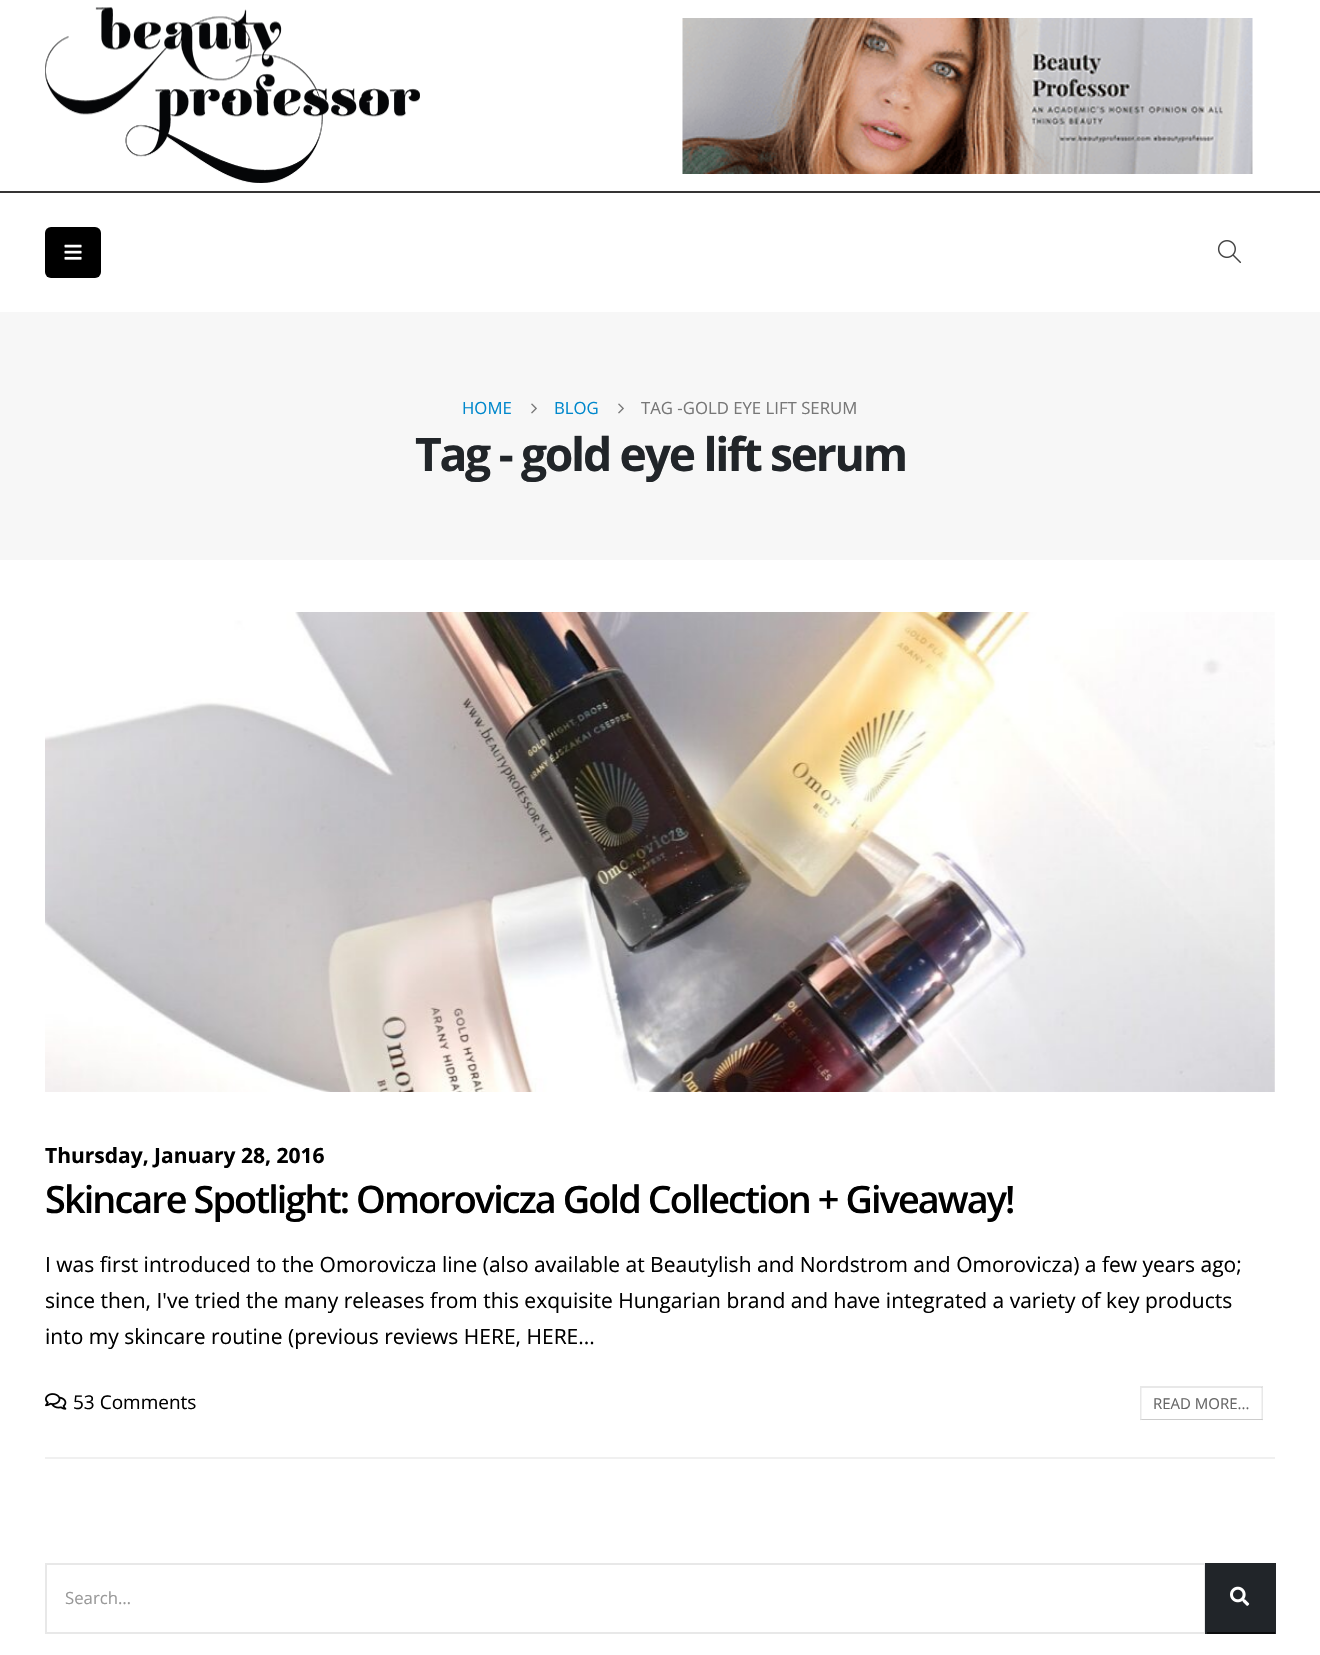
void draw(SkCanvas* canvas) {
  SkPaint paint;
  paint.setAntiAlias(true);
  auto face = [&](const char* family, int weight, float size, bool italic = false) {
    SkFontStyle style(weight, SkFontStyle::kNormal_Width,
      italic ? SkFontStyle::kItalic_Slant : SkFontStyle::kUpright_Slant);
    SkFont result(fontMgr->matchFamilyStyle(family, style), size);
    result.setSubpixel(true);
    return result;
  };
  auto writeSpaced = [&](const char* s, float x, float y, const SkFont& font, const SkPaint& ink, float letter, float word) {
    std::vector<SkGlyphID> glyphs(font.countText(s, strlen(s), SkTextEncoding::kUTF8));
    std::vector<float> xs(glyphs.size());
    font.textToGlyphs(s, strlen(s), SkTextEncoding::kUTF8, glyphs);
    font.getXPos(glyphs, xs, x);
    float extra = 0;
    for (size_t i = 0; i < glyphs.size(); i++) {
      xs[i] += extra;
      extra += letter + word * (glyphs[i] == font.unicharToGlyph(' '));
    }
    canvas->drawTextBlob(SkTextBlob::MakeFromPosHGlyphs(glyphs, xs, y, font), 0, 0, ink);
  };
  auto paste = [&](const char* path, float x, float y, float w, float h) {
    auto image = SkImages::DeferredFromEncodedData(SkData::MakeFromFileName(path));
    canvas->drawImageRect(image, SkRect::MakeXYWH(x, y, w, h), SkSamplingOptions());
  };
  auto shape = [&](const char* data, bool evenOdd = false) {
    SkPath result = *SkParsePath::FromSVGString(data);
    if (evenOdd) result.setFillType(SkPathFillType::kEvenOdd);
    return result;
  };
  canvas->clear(0xffffffff);
  paint.setColor(0xff353434);
  canvas->drawRect(SkRect::MakeXYWH(0, 191, 1320, 2), paint);
  paste("img/1.png", 45, 7, 375, 176);
  paste("img/2.png", 682, 18, 571, 156);
  paint.setColor(0xff000000);
  canvas->drawRoundRect(SkRect::MakeXYWH(45, 227, 56, 51), 6, 6, paint);
  paste("img/3.png", 64, 244, 18, 16);
  paste("img/4.png", 1217, 240, 25, 24);
  paint.setColor(0xfff7f7f7);
  canvas->drawRect(SkRect::MakeXYWH(0, 312, 1320, 248), paint);
  paste("img/5.png", 531, 403, 6, 11);
  paste("img/5.png", 618, 403, 6, 11);
  paint.setColor(0xfff0f0f0);
  canvas->drawRect(SkRect::MakeXYWH(45, 1457, 1230, 2), paint);
  paste("img/6.png", 45, 612, 1230, 480);
  paste("img/7.png", 45, 1393, 22, 17);
  paint.setColor(0xffe8e8e8);
  canvas->drawPath(shape("M1140 1386H1263L1262 1388H1142Z"), paint);
  paint.setColor(0x17000000);
  canvas->drawPath(shape("M1263 1386V1420.5L1261.5 1419V1387.5Z"), paint);
  paint.setColor(0x33000000);
  canvas->drawPath(shape("M1263 1420H1140L1142 1419H1262Z"), paint);
  paint.setColor(0x17000000);
  canvas->drawPath(shape("M1140 1420.5V1386L1141.5 1387.5V1419Z"), paint);
  paint.setStroke(true);
  paint.setStrokeWidth(2);
  paint.setColor(0xffe8e8e8);
  canvas->drawRect(SkRect::MakeXYWH(46, 1564, 1159, 69), paint);
  paint.setStroke(false);
  {
    const struct { float x, y, w, h; SkColor color; } items[] = {
      {1207, 1563, 67, 69, 0xff212529},
      {1274, 1563, 2, 71, 0xff212529},
      {1205, 1632, 70, 2, 0xff0b0c0d},
      {1205, 1563, 2, 71, 0xff212529},
    };
    for (auto [x, y, w, h, color] : items) {
      paint.setColor(color);
      canvas->drawRect(SkRect::MakeXYWH(x, y, w, h), paint);
    }
  }
  paste("img/8.png", 1230, 1586, 20, 20);
  auto f0 = face("Open Sans", 400, 16.75f);
  paint.setColor(0xff0088cc);
  canvas->drawString("HOME", 462, 414, f0, paint);
  canvas->drawString("BLOG", 554, 414, f0, paint);
  paint.setColor(0xff777777);
  canvas->drawString("TAG -GOLD EYE LIFT SERUM", 641, 414, f0, paint);
  auto f1 = face("Open Sans", 700, 46.25f);
  paint.setColor(0xff212529);
  writeSpaced("Tag - gold eye lift serum", 415, 471, f1, paint, -2.3f, 0);
  auto f2 = face("Open Sans", 700, 21);
  paint.setColor(0xff000000);
  canvas->drawString("Thursday, January 28, 2016", 45, 1163, f2, paint);
  auto f3 = face("Open Sans", 600, 37.8f);
  writeSpaced("Skincare Spotlight: Omorovicza Gold Collection + Giveaway!", 45, 1213, f3, paint, -1.9f, 0);
  auto f4 = face("Open Sans", 400, 21);
  {
    const struct { const char* s; float x, y; } items[] = {
      {"I was first introduced to the Omorovicza line (also available at Beautylish and Nordstrom and Omorovicza) a few years ago;", 45, 1272},
      {"since then, I've tried the many releases from this exquisite Hungarian brand and have integrated a variety of key products", 45, 1308},
      {"into my skincare routine (previous reviews HERE, HERE...", 45, 1344},
    };
    for (auto [s, x, y] : items) {
      canvas->drawString(s, x, y, f4, paint);
    }
  }
  auto f5 = face("Open Sans", 400, 19);
  canvas->drawString("53 Comments", 73, 1409, f5, paint);
  auto f6 = face("Open Sans", 400, 15);
  paint.setColor(0xff666666);
  canvas->drawString("READ MORE...", 1153, 1409, f6, paint);
  paint.setColor(0xff999999);
  canvas->drawString("Search…", 65, 1604, f0, paint);
}
